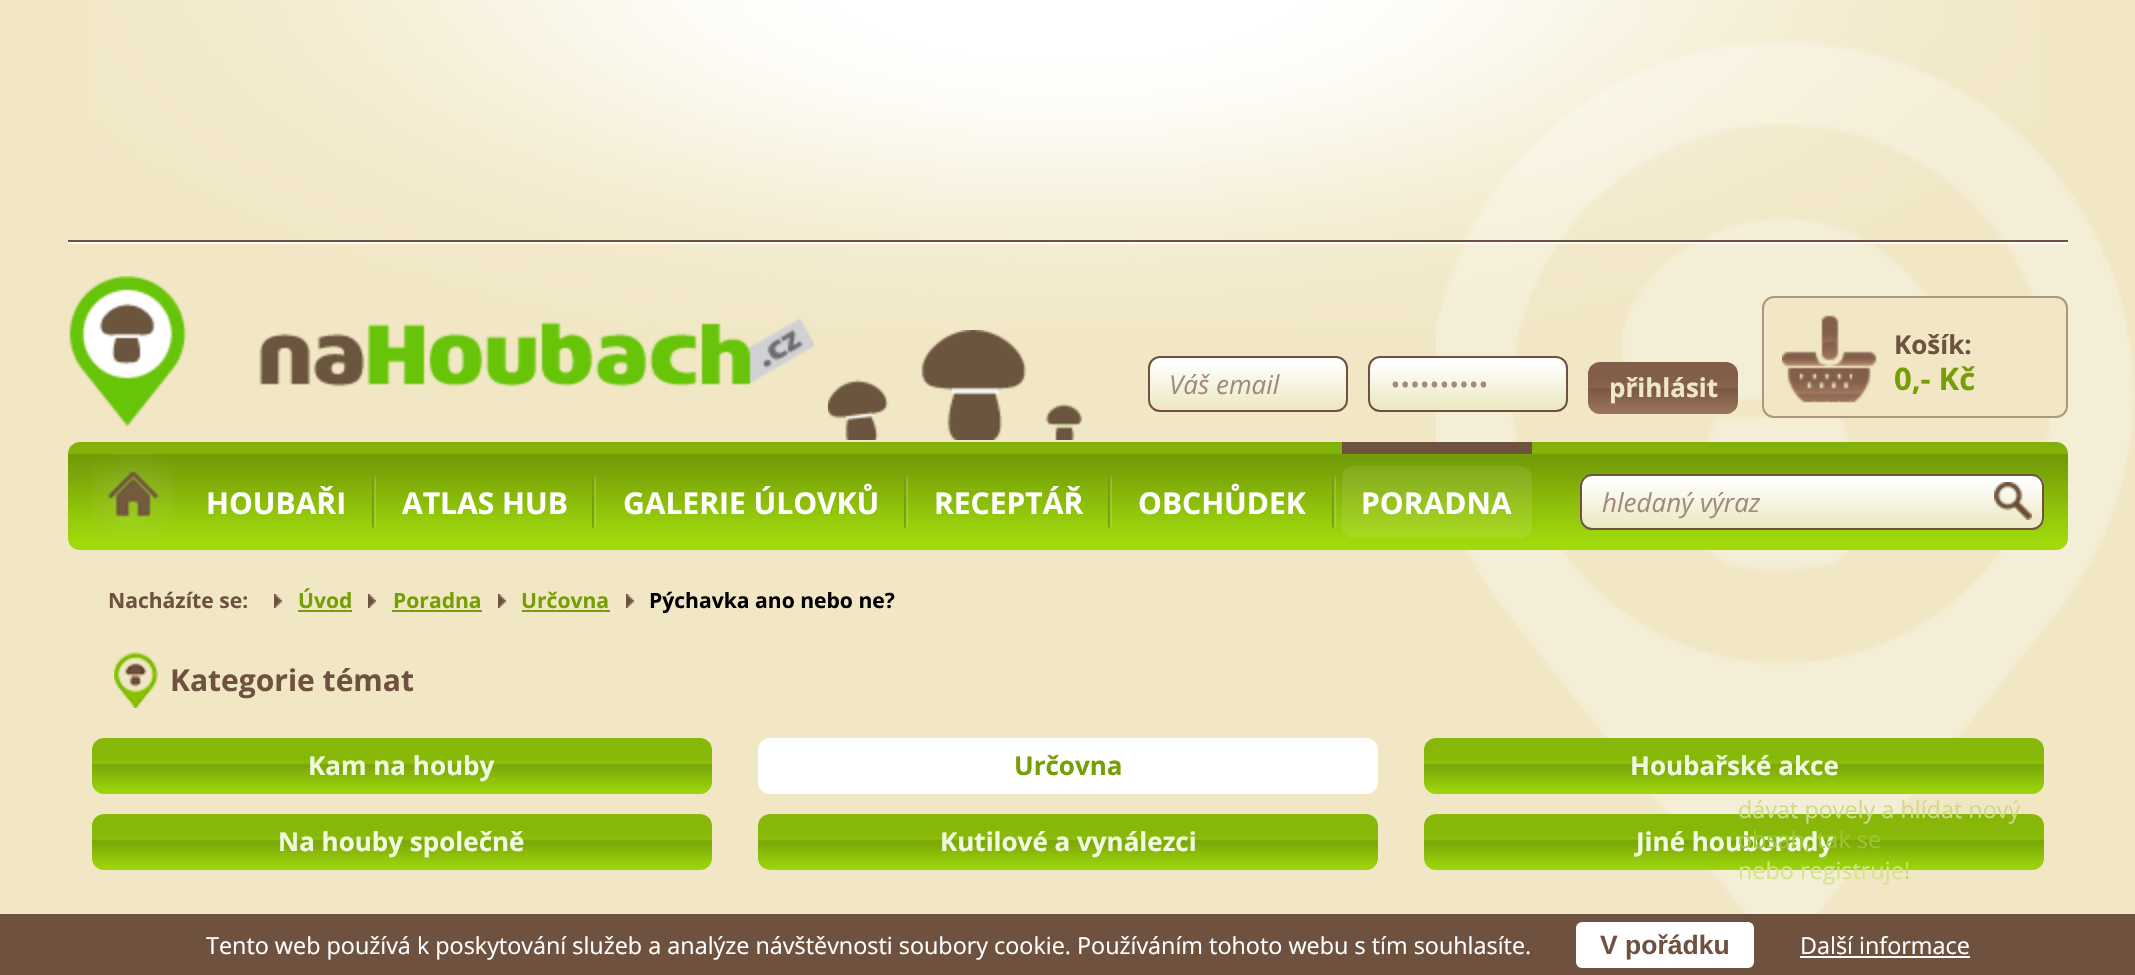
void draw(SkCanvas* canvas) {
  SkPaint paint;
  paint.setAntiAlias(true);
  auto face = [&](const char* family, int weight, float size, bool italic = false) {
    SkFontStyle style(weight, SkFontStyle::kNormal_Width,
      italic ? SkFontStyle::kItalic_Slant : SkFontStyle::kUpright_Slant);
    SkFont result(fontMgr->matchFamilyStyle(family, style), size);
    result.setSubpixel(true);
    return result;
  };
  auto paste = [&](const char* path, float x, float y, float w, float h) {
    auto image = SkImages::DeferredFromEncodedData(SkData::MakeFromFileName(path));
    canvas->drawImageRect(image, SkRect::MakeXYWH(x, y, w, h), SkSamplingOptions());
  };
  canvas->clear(0xfff1e7c4);
  paste("img/1.png", 1436, 40, 699, 874);
  paste("img/2.png", 87, 0, 1956, 333);
  paint.setColor(0xfffffafa);
  canvas->drawRect(SkRect::MakeXYWH(68, 242, 2000, 2), paint);
  paint.setColor(0xff6f513f);
  canvas->drawRect(SkRect::MakeXYWH(68, 240, 2000, 2), paint);
  paste("img/3.png", 828, 330, 254, 110);
  paste("img/4.png", 69, 276, 745, 150);
  paste("img/5.png", 1148, 358, 200, 46);
  paint.setStroke(true);
  paint.setStrokeWidth(2);
  canvas->drawRoundRect(SkRect::MakeXYWH(1149, 357, 198, 54), 11, 11, paint);
  paste("img/6.png", 1368, 358, 200, 52);
  canvas->drawRoundRect(SkRect::MakeXYWH(1369, 357, 198, 54), 11, 11, paint);
  paste("img/7.png", 1588, 362, 150, 52);
  paint.setStroke(false);
  paint.setColor(0xfff1e7c4);
  canvas->drawRoundRect(SkRect::MakeXYWH(1762, 296, 306, 122), 12, 12, paint);
  paste("img/8.png", 1782, 315, 95, 88);
  paint.setStroke(true);
  paint.setColor(0x876f513f);
  canvas->drawRoundRect(SkRect::MakeXYWH(1763, 297, 304, 120), 11, 11, paint);
  paste("img/9.png", 68, 442, 2000, 108);
  paste("img/10.png", 91, 455, 84, 82);
  paste("img/11.png", 372, 476, 4, 52);
  paste("img/11.png", 592, 476, 4, 52);
  paste("img/11.png", 904, 476, 4, 52);
  paste("img/11.png", 1108, 476, 4, 52);
  paste("img/11.png", 1332, 476, 4, 52);
  paint.setStroke(false);
  paint.setColor(0xff6e513f);
  canvas->drawRect(SkRect::MakeXYWH(1342, 442, 190, 12), paint);
  paste("img/12.png", 1342, 466, 190, 72);
  paste("img/13.png", 1580, 476, 464, 52);
  paint.setStroke(true);
  paint.setColor(0xff6f513f);
  canvas->drawRoundRect(SkRect::MakeXYWH(1581, 475, 462, 54), 11, 11, paint);
  paste("img/14.png", 1994, 482, 38, 38);
  paste("img/15.png", 274, 594, 8, 14);
  paint.setStroke(false);
  paint.setColor(0xff759e07);
  canvas->drawRect(SkRect::MakeXYWH(298, 610, 54, 2), paint);
  paste("img/15.png", 368, 594, 8, 14);
  canvas->drawRect(SkRect::MakeXYWH(392, 610, 90, 2), paint);
  paste("img/15.png", 498, 594, 8, 14);
  canvas->drawRect(SkRect::MakeXYWH(522, 610, 88, 2), paint);
  paste("img/15.png", 626, 594, 8, 14);
  paste("img/16.png", 114, 652, 44, 56);
  paste("img/17.png", 92, 738, 620, 56);
  paint.setColor(0xffffffff);
  canvas->drawRoundRect(SkRect::MakeXYWH(758, 738, 620, 56), 12, 12, paint);
  paste("img/18.png", 1424, 738, 620, 56);
  paste("img/17.png", 92, 814, 620, 56);
  paste("img/19.png", 758, 814, 620, 56);
  paste("img/18.png", 1424, 814, 620, 56);
  paint.setColor(0xff6f513f);
  canvas->drawRect(SkRect::MakeXYWH(0, 914, 2135, 61), paint);
  paint.setColor(0xffffffff);
  canvas->drawRoundRect(SkRect::MakeXYWH(1576, 922, 178, 46), 6, 6, paint);
  canvas->drawRect(SkRect::MakeXYWH(1800, 956, 170, 2), paint);
  auto f0 = face("Open Sans", 400, 26, true);
  paint.setColor(0xffa28b77);
  canvas->drawString("Váš email", 1169, 394, f0, paint);
  canvas->drawString("••••••••••", 1390, 394, f0, paint);
  auto f1 = face("Open Sans", 700, 26);
  paint.setColor(0xfff1e7c4);
  canvas->drawString("přihlásit", 1609, 397, f1, paint);
  paint.setColor(0xff6f513f);
  canvas->drawString("Košík:", 1894, 354, f1, paint);
  auto f2 = face("Open Sans", 700, 31);
  paint.setColor(0xff759e07);
  canvas->drawString("0,- Kč", 1894, 390, f2, paint);
  auto f3 = face("Open Sans", 700, 30);
  paint.setColor(0xffffffff);
  {
    const struct { const char* s; float x, y; } items[] = {
      {"HOUBAŘI", 206, 514},
      {"ATLAS HUB", 402, 514},
      {"GALERIE ÚLOVKŮ", 623, 514},
      {"RECEPTÁŘ", 934, 514},
      {"OBCHŮDEK", 1138, 514},
      {"PORADNA", 1361, 514},
    };
    for (auto [s, x, y] : items) {
      canvas->drawString(s, x, y, f3, paint);
    }
  }
  paint.setColor(0xffa28b77);
  canvas->drawString("hledaný výraz", 1602, 512, f0, paint);
  auto f4 = face("Open Sans", 700, 21.1f);
  paint.setColor(0xff6f513f);
  canvas->drawString("Nacházíte se:", 108, 608, f4, paint);
  paint.setColor(0xff759e07);
  {
    const struct { const char* s; float x, y; } items[] = {
      {"Úvod", 298, 608},
      {"Poradna", 393, 608},
      {"Určovna", 521, 608},
    };
    for (auto [s, x, y] : items) {
      canvas->drawString(s, x, y, f4, paint);
    }
  }
  paint.setColor(0xff000000);
  canvas->drawString("Pýchavka ano nebo ne?", 649, 608, f4, paint);
  paint.setColor(0xff6f513f);
  canvas->drawString("Kategorie témat", 170, 691, f3, paint);
  paint.setColor(0xfff0fade);
  canvas->drawString("Kam na houby", 308, 775, f1, paint);
  paint.setColor(0xff759e07);
  canvas->drawString("Určovna", 1014, 775, f1, paint);
  paint.setColor(0xfff0fade);
  {
    const struct { const char* s; float x, y; } items[] = {
      {"Houbařské akce", 1630, 775},
      {"Na houby společně", 278, 851},
      {"Kutilové a vynálezci", 940, 851},
      {"Jiné houborady", 1636, 851},
    };
    for (auto [s, x, y] : items) {
      canvas->drawString(s, x, y, f1, paint);
    }
  }
  auto f5 = face("Open Sans", 400, 23.4f);
  paint.setColor(0xffcfda8c);
  canvas->drawString("dávat povely a hlídat nový", 1738, 818, f5, paint);
  paint.setColor(0xff9ec43c);
  canvas->drawString("obsah, tak se", 1738, 848, f5, paint);
  paint.setColor(0xffd5e48d);
  canvas->drawString("nebo", 1738, 879, f5, paint);
  canvas->drawString("registruje", 1800, 879, f5, paint);
  paint.setColor(0xffc4db66);
  canvas->drawString("!", 1904, 879, f5, paint);
  paint.setColor(0xffffffff);
  canvas->drawString("Tento web používá k poskytování služeb a analýze návštěvnosti soubory cookie. Používáním tohoto webu s tím souhlasíte.", 206, 954, f5, paint);
  auto f6 = face("Liberation Sans", 700, 26.5f);
  paint.setColor(0xff6f513f);
  canvas->drawString("V pořádku", 1600, 954, f6, paint);
  paint.setColor(0xffffffff);
  canvas->drawString("Další informace", 1800, 954, f5, paint);
}
